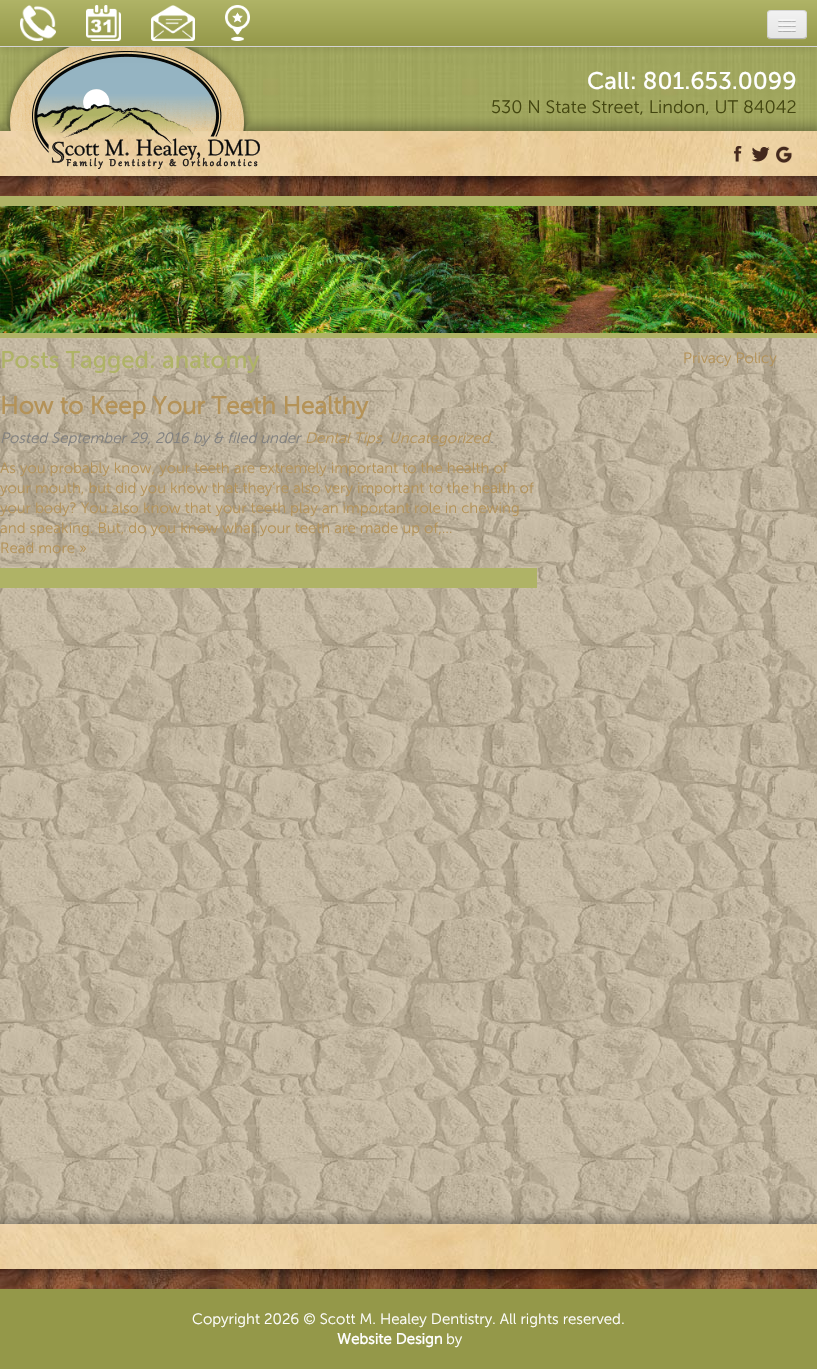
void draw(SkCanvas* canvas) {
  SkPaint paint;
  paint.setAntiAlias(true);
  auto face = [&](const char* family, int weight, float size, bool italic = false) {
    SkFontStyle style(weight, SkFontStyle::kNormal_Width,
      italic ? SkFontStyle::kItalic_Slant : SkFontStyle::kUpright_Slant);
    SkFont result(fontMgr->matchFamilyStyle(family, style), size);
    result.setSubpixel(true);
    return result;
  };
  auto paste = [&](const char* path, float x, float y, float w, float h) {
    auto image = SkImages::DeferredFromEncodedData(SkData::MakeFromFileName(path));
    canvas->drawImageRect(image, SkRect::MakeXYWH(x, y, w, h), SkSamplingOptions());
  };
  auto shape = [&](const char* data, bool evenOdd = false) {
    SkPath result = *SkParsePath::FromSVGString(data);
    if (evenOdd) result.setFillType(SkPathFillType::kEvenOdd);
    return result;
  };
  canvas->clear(0xffffffff);
  paste("img/1.png", 0, 338, 817, 886);
  paste("img/6.png", 0, 47, 817, 84);
  paste("img/12.png", 0, 176, 817, 20);
  paint.setColor(0xffafb366);
  canvas->drawRect(SkRect::MakeXYWH(0, 196, 817, 10), paint);
  paint.setColor(0x4d000000);
  paint.setMaskFilter(SkMaskFilter::MakeBlur(kNormal_SkBlurStyle, 5));
  canvas->drawRect(SkRect::MakeXYWH(-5, 126, 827, 55), paint);
  paint.setMaskFilter(nullptr);
  paste("img/8.png", 0, 131, 817, 45);
  paste("img/7.png", 0, 47, 260, 122);
  paint.setColor(0x1a000000);
  paint.setMaskFilter(SkMaskFilter::MakeBlur(kNormal_SkBlurStyle, 5));
  canvas->drawRect(SkRect::MakeXYWH(0, 1, 817, 47), paint);
  paint.setMaskFilter(nullptr);
  {
    const SkColor colors[] = {0xffafb366, 0xff949849};
    const float stops[] = {0, 1};
    const SkPoint ends[] = {{409, 0}, {409, 46}};
    paint.setShader(SkGradientShader::MakeLinear(ends, colors, stops, 2, SkTileMode::kClamp));
    paint.setAlpha(255);
  }
  canvas->drawRect(SkRect::MakeXYWH(0, 0, 817, 46), paint);
  paint.setShader(nullptr);
  paint.setColor(0xffd4d4d4);
  canvas->drawRect(SkRect::MakeXYWH(0, 46, 817, 1), paint);
  paste("img/2.png", 20, 5, 36, 36);
  paste("img/3.png", 86, 5, 35, 36);
  paste("img/4.png", 151, 5, 44, 36);
  paste("img/5.png", 225, 5, 25, 36);
  paint.setColor(0xffa0a35a);
  canvas->drawPath(shape("M767 35C767 41 772 40 776 40H798C802 40 807 41 807 35C807 37 805 39 803 39H771C769 39 767 37 767 35Z"), paint);
  paint.setColor(0xffededed);
  canvas->drawRoundRect(SkRect::MakeXYWH(767, 10, 40, 29), 4, 4, paint);
  canvas->save();
  canvas->clipPath(shape("M771 10H803C805 10 807 12 807 14V35C807 37 805 39 803 39H771C769 39 767 37 767 35V14C767 12 769 10 771 10Z"), true);
  {
    const SkColor colors[] = {0xfff2f2f2, 0xffe5e5e5};
    const float stops[] = {0, 1};
    const SkPoint ends[] = {{787, 11}, {787, 38}};
    paint.setShader(SkGradientShader::MakeLinear(ends, colors, stops, 2, SkTileMode::kClamp));
    paint.setAlpha(255);
  }
  canvas->drawRect(SkRect::MakeXYWH(767, 11, 40, 27), paint);
  canvas->restore();
  paint.setStroke(true);
  paint.setStrokeWidth(1);
  paint.setShader(nullptr);
  paint.setColor(0x40000000);
  canvas->drawPath(shape("M805.5 37.5C805 38 804 38.5 803 38.5H771C770 38.5 769 38 768.5 37.5"), paint);
  paint.setColor(0x1a000000);
  canvas->drawPath(shape("M768.5 37.5C768 37 767.5 36 767.5 35V14C767.5 13 768 12 768.5 11.5C769 11 770 10.5 771 10.5H803C804 10.5 805 11 805.5 11.5C806 12 806.5 13 806.5 14V35C806.5 36 806 37 805.5 37.5"), paint);
  paint.setStroke(false);
  paint.setColor(0xffb2b2b2);
  canvas->drawPath(shape("M778 20.5C777 22.5 781.5 22 781.5 22H792.5C792.5 22 797 22.5 796 20.5C795 21.5 788.5 21 787 21C785.5 21 779 21.5 778 20.5Z"), paint);
  paint.setColor(0xfff5f5f5);
  canvas->drawRoundRect(SkRect::MakeXYWH(778, 19, 18, 2), 1, 1, paint);
  paint.setColor(0xffb0b0b0);
  canvas->drawPath(shape("M778 25.5C777 27.5 781.5 27 781.5 27H792.5C792.5 27 797 27.5 796 25.5C795 26.5 788.5 26 787 26C785.5 26 779 26.5 778 25.5Z"), paint);
  paint.setColor(0xfff5f5f5);
  canvas->drawRoundRect(SkRect::MakeXYWH(778, 24, 18, 2), 1, 1, paint);
  paint.setColor(0xffaeaeae);
  canvas->drawPath(shape("M778 30.5C777 32.5 781.5 32 781.5 32H792.5C792.5 32 797 32.5 796 30.5C795 31.5 788.5 31 787 31C785.5 31 779 31.5 778 30.5Z"), paint);
  paint.setColor(0xfff5f5f5);
  canvas->drawRoundRect(SkRect::MakeXYWH(778, 29, 18, 2), 1, 1, paint);
  paste("img/9.png", 734, 146, 8, 16);
  paste("img/10.png", 752, 147, 18, 15);
  paste("img/11.png", 776, 146, 16, 17);
  paint.setColor(0xffafb366);
  canvas->drawRect(SkRect::MakeXYWH(0, 333, 817, 5), paint);
  paste("img/13.png", 0, 206, 817, 127);
  canvas->drawRect(SkRect::MakeXYWH(0, 568, 537, 20), paint);
  paste("img/12.png", 0, 1269, 817, 20);
  paint.setColor(0xff949849);
  canvas->drawRect(SkRect::MakeXYWH(0, 1289, 817, 80), paint);
  paint.setColor(0x4d000000);
  paint.setMaskFilter(SkMaskFilter::MakeBlur(kNormal_SkBlurStyle, 5));
  canvas->drawRect(SkRect::MakeXYWH(-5, 1219, 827, 55), paint);
  paint.setMaskFilter(nullptr);
  paste("img/8.png", 0, 1224, 817, 45);
  auto f0 = face("Museo Sans", 400, 24);
  paint.setColor(0xffffffff);
  canvas->drawString("Call: 801.653.0099", 587, 89, f0, paint);
  auto f1 = face("Museo Sans", 300, 18);
  paint.setColor(0xff434610);
  canvas->drawString("530 N State Street, Lindon, UT 84042", 491, 113, f1, paint);
  paint.setColor(0xffafb366);
  canvas->drawString("Posts Tagged: anatomy", 0, 368, f0, paint);
  auto f2 = face("Museo Sans", 700, 24.5f);
  paint.setColor(0xffb49257);
  canvas->drawString("How to Keep Your Teeth Healthy", 0, 414, f2, paint);
  auto f3 = face("Museo Sans", 300, 15, true);
  paint.setColor(0xff808080);
  canvas->drawString("Posted September 29, 2016 by & filed under", 0, 443, f3, paint);
  paint.setColor(0xffb49257);
  canvas->drawString("Dental Tips", 305, 443, f3, paint);
  paint.setColor(0xff808080);
  canvas->drawString(",", 381, 443, f3, paint);
  paint.setColor(0xffb49257);
  canvas->drawString("Uncategorized", 389, 443, f3, paint);
  paint.setColor(0xff808080);
  canvas->drawString(".", 490, 443, f3, paint);
  auto f4 = face("Museo Sans", 300, 15);
  paint.setColor(0xffb49257);
  {
    const struct { const char* s; float x, y; } items[] = {
      {"As you probably know, your teeth are extremely important to the health of", 0, 473},
      {"your mouth, but did you know that they’re also very important to the health of", 0, 493},
      {"your body? You also know that your teeth play an important role in chewing", 0, 513},
      {"and speaking. But, do you know what your teeth are made up of,…", 0, 533},
      {"Read more »", 0, 553},
      {"Privacy Policy", 683, 363},
    };
    for (auto [s, x, y] : items) {
      canvas->drawString(s, x, y, f4, paint);
    }
  }
  paint.setColor(0xffffffff);
  canvas->drawString("Copyright 2026 © Scott M. Healey Dentistry. All rights reserved.", 192, 1324, f4, paint);
  auto f5 = face("Museo Sans", 700, 15);
  canvas->drawString("Website Design", 337, 1344, f5, paint);
  canvas->drawString("by", 446, 1344, f4, paint);
}
